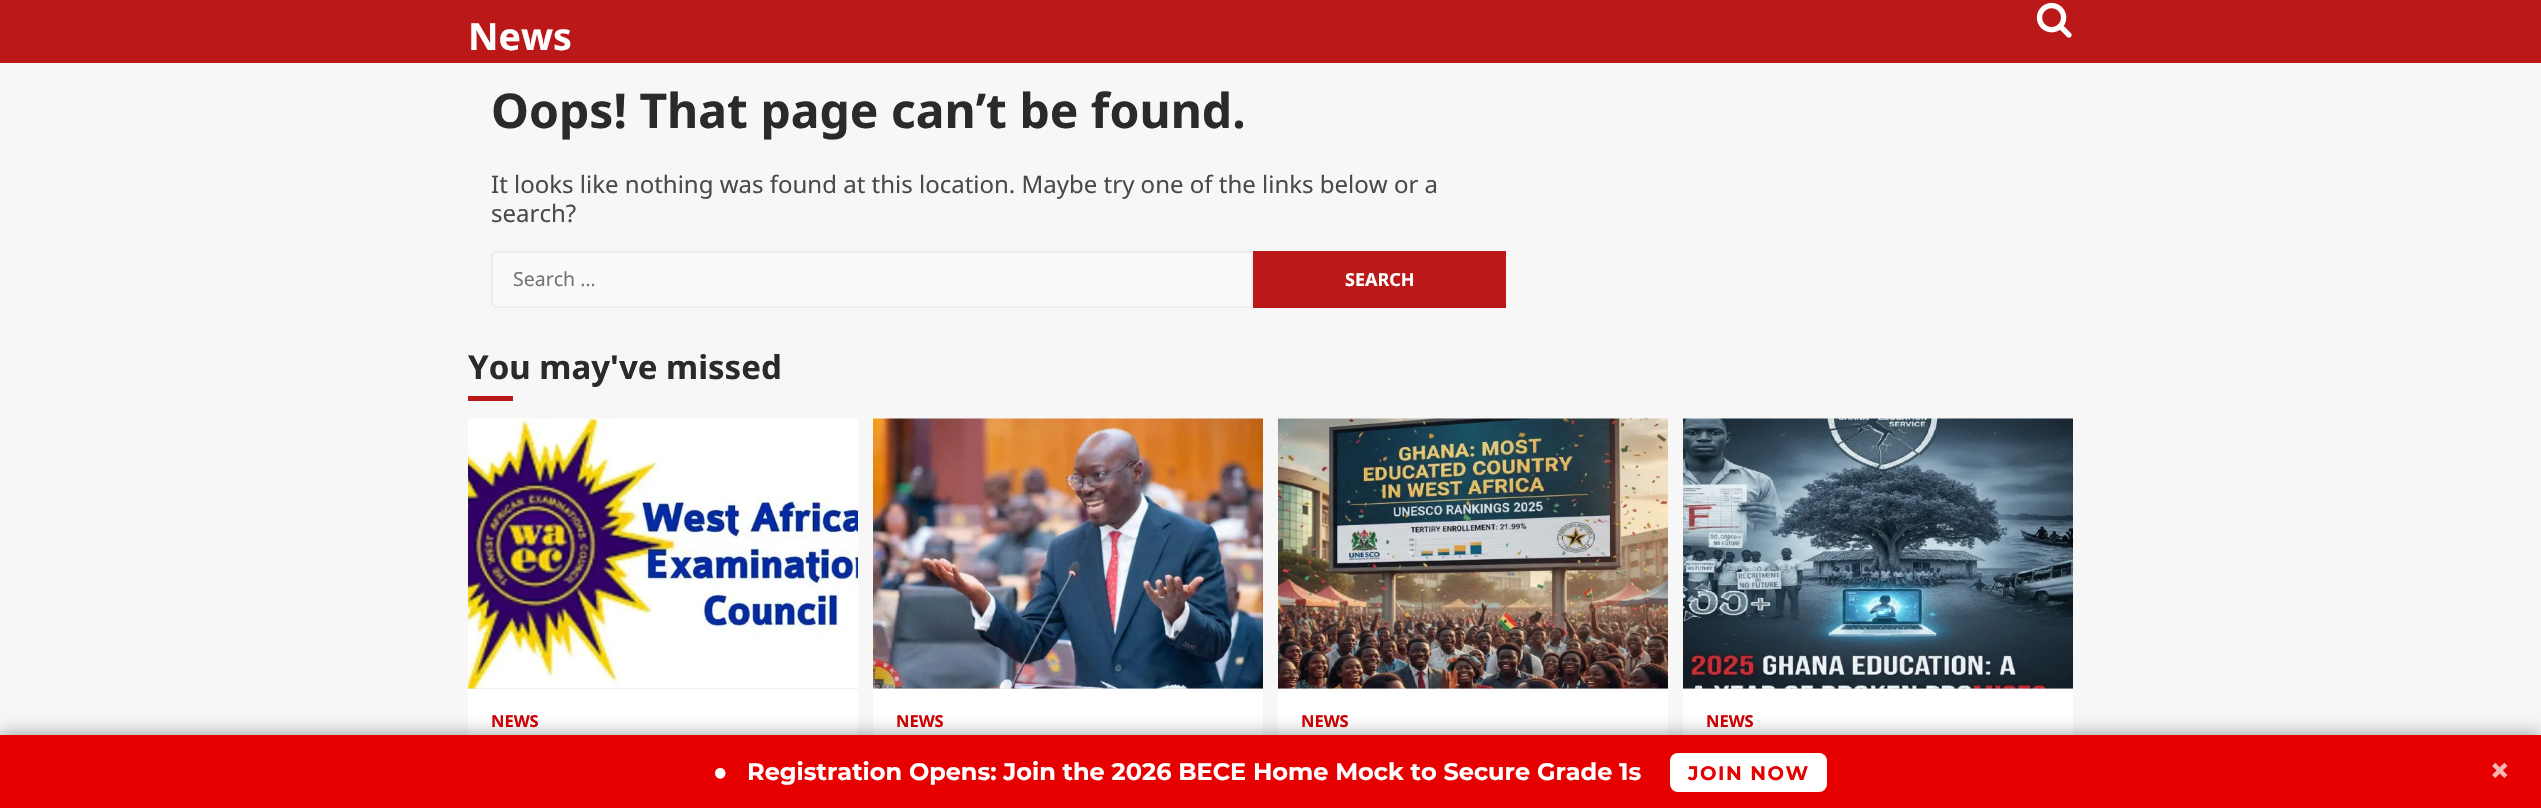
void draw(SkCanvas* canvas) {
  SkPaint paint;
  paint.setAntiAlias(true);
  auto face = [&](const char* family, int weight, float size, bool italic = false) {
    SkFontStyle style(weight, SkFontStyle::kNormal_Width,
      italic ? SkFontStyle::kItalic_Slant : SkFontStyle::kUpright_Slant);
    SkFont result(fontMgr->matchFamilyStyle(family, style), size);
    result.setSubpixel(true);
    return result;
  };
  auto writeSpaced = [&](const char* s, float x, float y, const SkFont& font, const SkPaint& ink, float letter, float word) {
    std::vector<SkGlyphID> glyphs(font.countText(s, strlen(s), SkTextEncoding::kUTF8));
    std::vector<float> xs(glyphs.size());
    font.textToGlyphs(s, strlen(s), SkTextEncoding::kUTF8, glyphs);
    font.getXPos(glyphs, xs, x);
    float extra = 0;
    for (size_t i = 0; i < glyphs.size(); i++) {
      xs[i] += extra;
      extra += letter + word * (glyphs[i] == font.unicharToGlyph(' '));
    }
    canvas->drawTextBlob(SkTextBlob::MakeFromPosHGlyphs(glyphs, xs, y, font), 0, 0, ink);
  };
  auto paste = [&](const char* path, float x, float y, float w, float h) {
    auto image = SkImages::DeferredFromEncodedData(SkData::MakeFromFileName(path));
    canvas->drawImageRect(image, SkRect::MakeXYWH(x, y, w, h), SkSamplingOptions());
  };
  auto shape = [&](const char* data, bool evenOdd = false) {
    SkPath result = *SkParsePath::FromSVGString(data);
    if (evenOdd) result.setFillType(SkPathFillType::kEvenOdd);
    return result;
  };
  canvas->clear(0xfff7f7f7);
  paint.setColor(0xffbb1919);
  canvas->drawRect(SkRect::MakeXYWH(0, 0, 2541, 63), paint);
  paste("img/1.png", 2036, 2, 36, 36);
  paint.setColor(0xfffafafa);
  canvas->drawPath(shape("M496 252H1252V307H496C494 307 492 305 492 303V256C492 254 494 252 496 252Z"), paint);
  paint.setStroke(true);
  paint.setStrokeWidth(2);
  paint.setColor(0xffeeeeee);
  canvas->drawPath(shape("M496 252H1252V307H496C494 307 492 305 492 303V256C492 254 494 252 496 252Z"), paint);
  paint.setStroke(false);
  {
    const struct { float x, y, w, h; SkColor color; } items[] = {
      {1253, 251, 253, 57, 0xffbb1919},
      {468, 396, 45, 5, 0xffbb1919},
      {468, 689, 390, 46, 0xffffffff},
      {468, 688, 390, 1, 0xffe0e0e0},
    };
    for (auto [x, y, w, h, color] : items) {
      paint.setColor(color);
      canvas->drawRect(SkRect::MakeXYWH(x, y, w, h), paint);
    }
  }
  paste("img/2.png", 468, 418, 390, 271);
  paint.setColor(0xffffffff);
  canvas->drawRect(SkRect::MakeXYWH(873, 689, 390, 46), paint);
  paint.setColor(0xffe0e0e0);
  canvas->drawRect(SkRect::MakeXYWH(873, 688, 390, 1), paint);
  paste("img/3.png", 873, 418, 390, 271);
  paint.setColor(0xffffffff);
  canvas->drawRect(SkRect::MakeXYWH(1278, 689, 390, 46), paint);
  paint.setColor(0xffe0e0e0);
  canvas->drawRect(SkRect::MakeXYWH(1278, 688, 390, 1), paint);
  paste("img/4.png", 1278, 418, 390, 271);
  paint.setColor(0xffffffff);
  canvas->drawRect(SkRect::MakeXYWH(1683, 689, 390, 46), paint);
  paint.setColor(0xffe0e0e0);
  canvas->drawRect(SkRect::MakeXYWH(1683, 688, 390, 1), paint);
  paste("img/5.png", 1683, 418, 390, 271);
  paint.setColor(0x4d000000);
  paint.setMaskFilter(SkMaskFilter::MakeBlur(kNormal_SkBlurStyle, 7.5f));
  canvas->drawRect(SkRect::MakeXYWH(0, 732, 2541, 74), paint);
  paint.setMaskFilter(nullptr);
  paint.setColor(0xffe60000);
  canvas->drawRect(SkRect::MakeXYWH(0, 735, 2541, 73), paint);
  paint.setColor(0xffffffff);
  canvas->drawRoundRect(SkRect::MakeXYWH(1670, 753, 157, 39), 8, 8, paint);
  auto f0 = face("Noto Sans", 700, 37.5f);
  canvas->drawString("News", 468, 50, f0, paint);
  auto f1 = face("Noto Sans", 700, 48);
  paint.setColor(0xff2a2a2a);
  canvas->drawString("Oops! That page can’t be found.", 491, 128, f1, paint);
  auto f2 = face("Noto Sans", 400, 24);
  paint.setColor(0xff4a4a4a);
  canvas->drawString("It looks like nothing was found at this location. Maybe try one of the links below or a", 491, 193, f2, paint);
  canvas->drawString("search?", 491, 222, f2, paint);
  auto f3 = face("Noto Sans", 400, 19.5f);
  paint.setColor(0xff757575);
  canvas->drawString("Search …", 513, 286, f3, paint);
  auto f4 = face("Noto Sans", 700, 18);
  paint.setColor(0xffffffff);
  canvas->drawString("SEARCH", 1345, 286, f4, paint);
  auto f5 = face("Noto Sans", 700, 33);
  paint.setColor(0xff2a2a2a);
  canvas->drawString("You may've missed", 468, 379, f5, paint);
  auto f6 = face("Noto Sans", 700, 16.5f);
  paint.setColor(0xffcc0000);
  {
    const struct { const char* s; float x, y; } items[] = {
      {"NEWS", 491, 727},
      {"NEWS", 896, 727},
      {"NEWS", 1301, 727},
      {"NEWS", 1706, 727},
    };
    for (auto [s, x, y] : items) {
      canvas->drawString(s, x, y, f6, paint);
    }
  }
  auto f7 = face("Liberation Sans", 700, 24);
  paint.setColor(0xffffffff);
  canvas->drawString("●", 713, 780, f7, paint);
  auto f8 = face("Montserrat", 700, 24);
  canvas->drawString("Registration Opens: Join the 2026 BECE Home Mock to Secure Grade 1s", 747, 780, f8, paint);
  auto f9 = face("Montserrat", 700, 19.5f);
  paint.setColor(0xffe60000);
  writeSpaced("JOIN NOW", 1688, 780, f9, paint, 1.5f, 0);
  auto f10 = face("Montserrat", 700, 36);
  paint.setColor(0xfff8b3b3);
  canvas->drawString("×", 2489, 783, f10, paint);
}
